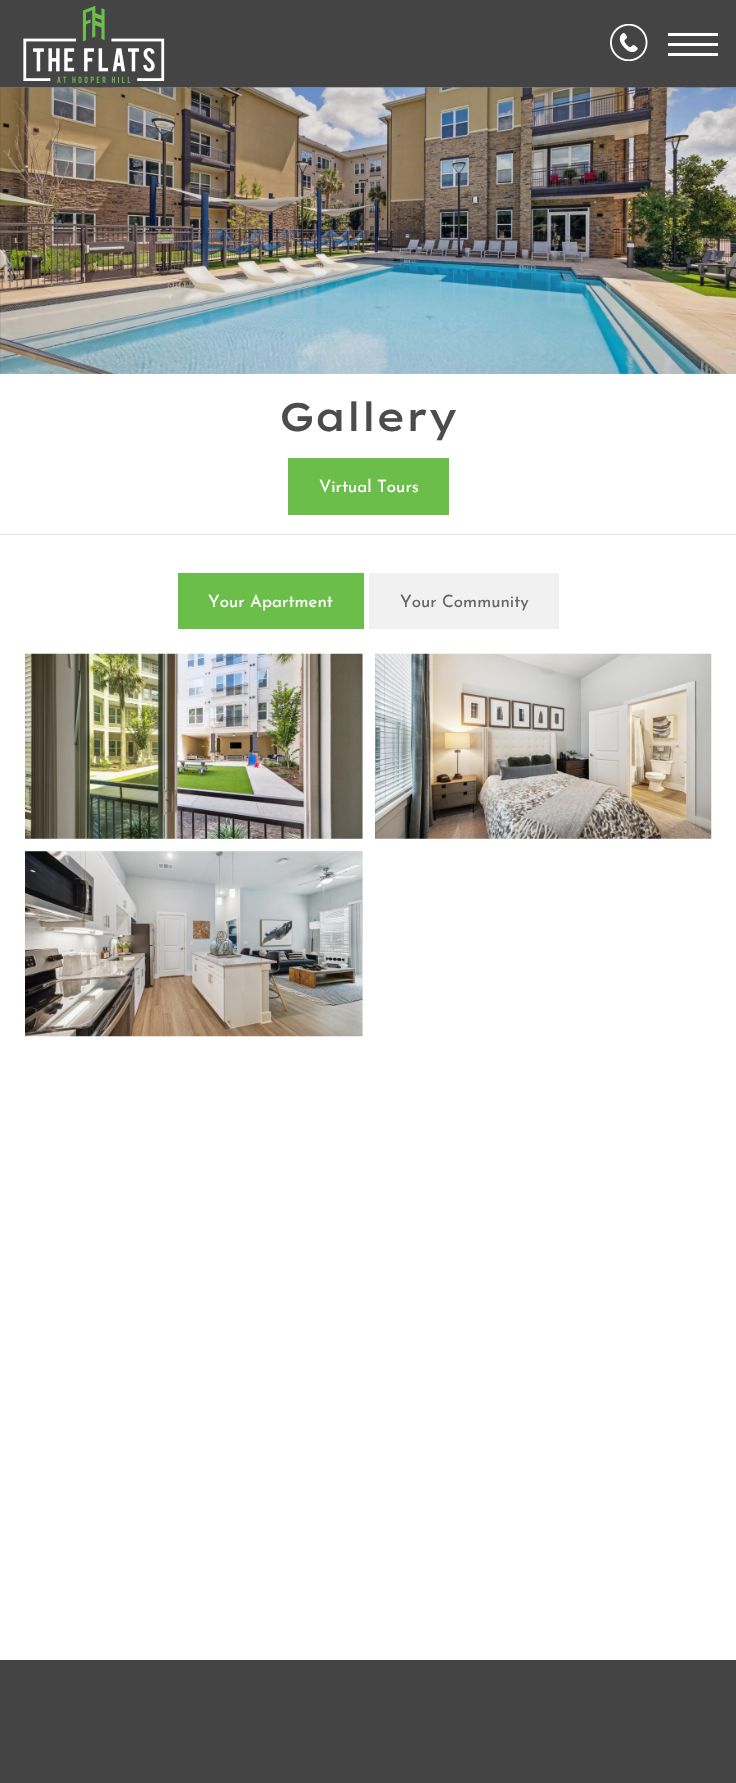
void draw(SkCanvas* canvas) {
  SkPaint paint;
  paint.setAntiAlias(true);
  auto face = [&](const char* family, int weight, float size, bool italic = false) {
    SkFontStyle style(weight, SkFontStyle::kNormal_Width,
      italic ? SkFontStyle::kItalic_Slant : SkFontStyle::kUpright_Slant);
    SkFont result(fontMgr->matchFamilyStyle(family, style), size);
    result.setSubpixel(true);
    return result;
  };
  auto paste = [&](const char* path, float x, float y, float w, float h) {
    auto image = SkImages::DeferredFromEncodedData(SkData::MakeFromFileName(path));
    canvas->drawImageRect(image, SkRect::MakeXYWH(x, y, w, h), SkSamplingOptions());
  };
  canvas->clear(0xffffffff);
  paint.setColor(0xff444444);
  canvas->drawRect(SkRect::MakeXYWH(0, 0, 736, 88), paint);
  paste("img/1.png", 23, 5, 142, 78);
  paste("img/2.png", 610, 24, 38, 37);
  {
    const struct { float x, y, w, h; SkColor color; } items[] = {
      {668, 33, 50, 3, 0xffffffff},
      {668, 43, 50, 3, 0xffffffff},
      {668, 53, 50, 3, 0xffffffff},
      {0, 534, 736, 1, 0xffe5e5e5},
    };
    for (auto [x, y, w, h, color] : items) {
      paint.setColor(color);
      canvas->drawRect(SkRect::MakeXYWH(x, y, w, h), paint);
    }
  }
  paste("img/3.png", 0, 87, 736, 287);
  paste("img/4.png", 0, 87, 736, 287);
  {
    const SkColor colors[] = {0x00000000, 0x1a000000};
    const float stops[] = {0, 1};
    const SkPoint ends[] = {{368, 226}, {368, 374}};
    paint.setShader(SkGradientShader::MakeLinear(ends, colors, stops, 2, SkTileMode::kClamp));
    paint.setAlpha(255);
  }
  canvas->drawRect(SkRect::MakeXYWH(0, 258, 736, 116), paint);
  paint.setShader(nullptr);
  {
    const struct { float x, y, w, h; SkColor color; } items[] = {
      {288, 458, 161, 57, 0xff6bbe4a},
      {178, 573, 186, 56, 0xff6bbe4a},
      {369, 573, 190, 56, 0xfff1f1f1},
      {25, 654, 338, 185, 0xfff2f2f2},
    };
    for (auto [x, y, w, h, color] : items) {
      paint.setColor(color);
      canvas->drawRect(SkRect::MakeXYWH(x, y, w, h), paint);
    }
  }
  paste("img/5.png", 25, 653, 338, 186);
  paste("img/6.png", 375, 653, 337, 186);
  canvas->drawRect(SkRect::MakeXYWH(25, 851, 338, 185), paint);
  paste("img/7.png", 25, 851, 338, 186);
  paint.setColor(0xff444444);
  canvas->drawRect(SkRect::MakeXYWH(0, 1660, 736, 123), paint);
  auto f0 = face("Lexend Exa", 500, 40);
  paint.setColor(0xff4d4c4c);
  canvas->drawString("Gallery", 279, 431, f0, paint);
  auto f1 = face("Josefin Sans", 400, 17);
  paint.setColor(0xffffffff);
  canvas->drawString("Virtual Tours", 319, 492, f1, paint);
  canvas->drawString("Your Apartment", 208, 607, f1, paint);
  paint.setColor(0xff666666);
  canvas->drawString("Your Community", 400, 607, f1, paint);
}
